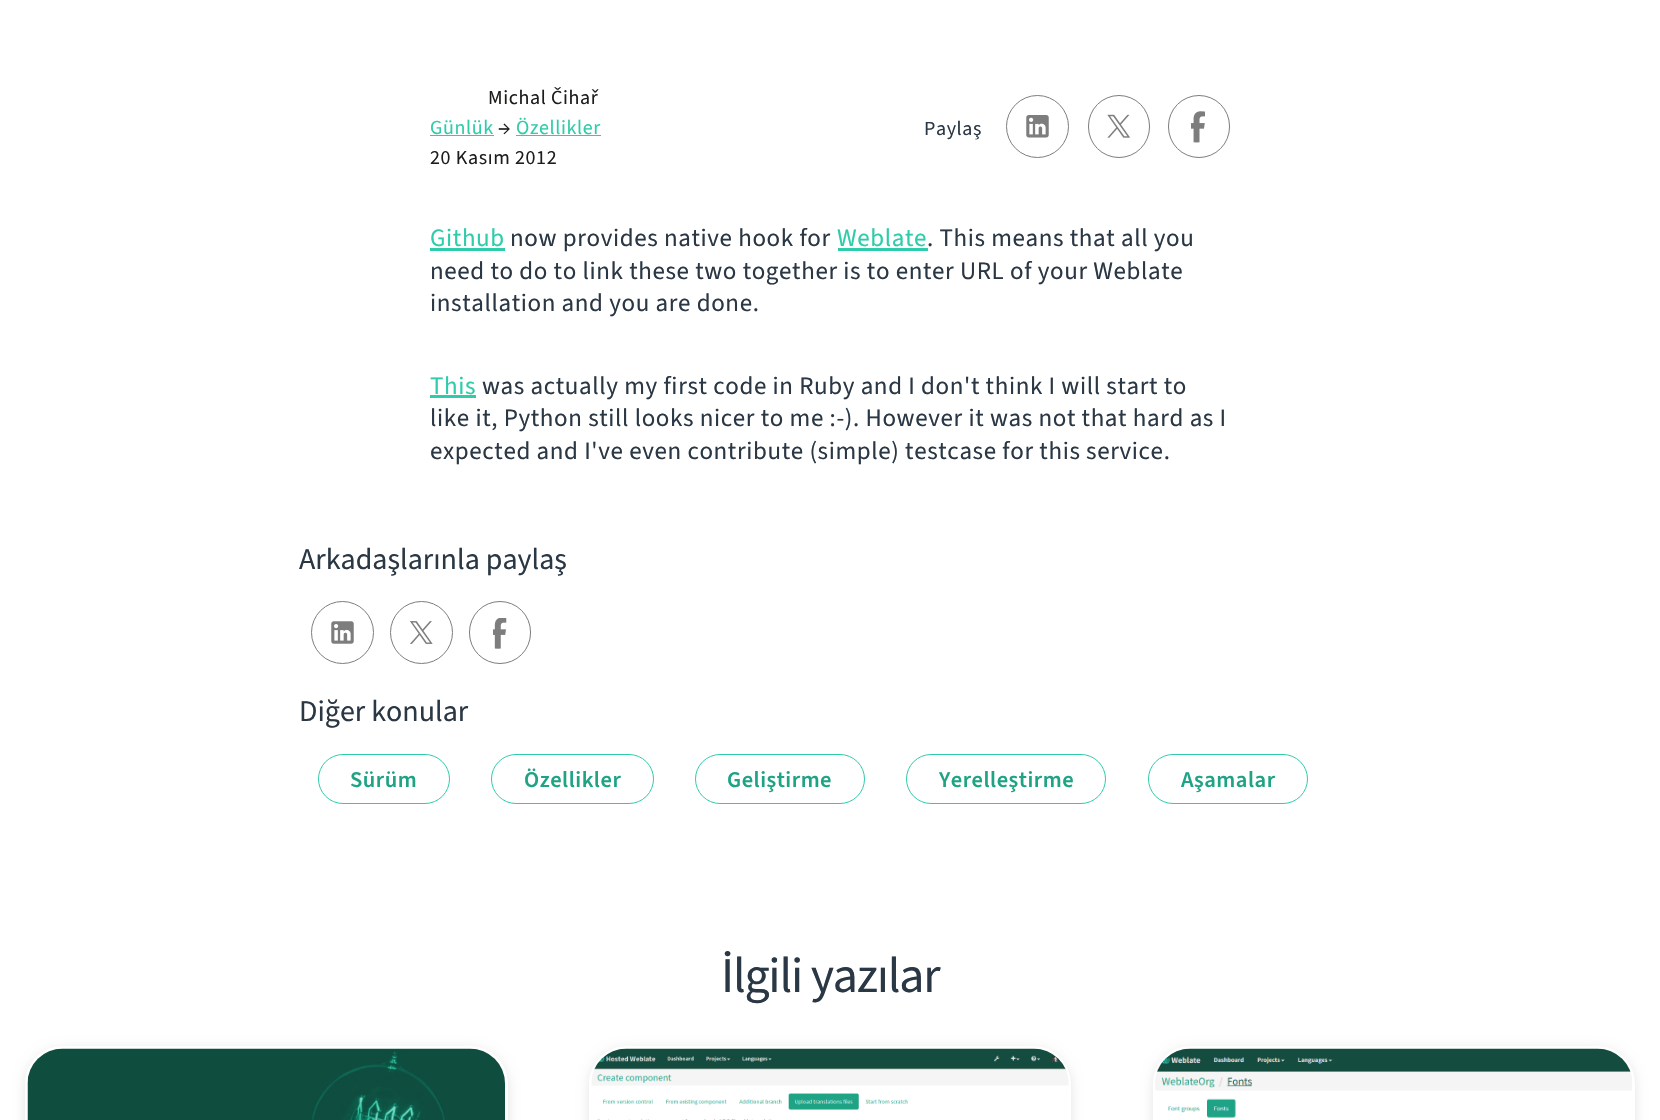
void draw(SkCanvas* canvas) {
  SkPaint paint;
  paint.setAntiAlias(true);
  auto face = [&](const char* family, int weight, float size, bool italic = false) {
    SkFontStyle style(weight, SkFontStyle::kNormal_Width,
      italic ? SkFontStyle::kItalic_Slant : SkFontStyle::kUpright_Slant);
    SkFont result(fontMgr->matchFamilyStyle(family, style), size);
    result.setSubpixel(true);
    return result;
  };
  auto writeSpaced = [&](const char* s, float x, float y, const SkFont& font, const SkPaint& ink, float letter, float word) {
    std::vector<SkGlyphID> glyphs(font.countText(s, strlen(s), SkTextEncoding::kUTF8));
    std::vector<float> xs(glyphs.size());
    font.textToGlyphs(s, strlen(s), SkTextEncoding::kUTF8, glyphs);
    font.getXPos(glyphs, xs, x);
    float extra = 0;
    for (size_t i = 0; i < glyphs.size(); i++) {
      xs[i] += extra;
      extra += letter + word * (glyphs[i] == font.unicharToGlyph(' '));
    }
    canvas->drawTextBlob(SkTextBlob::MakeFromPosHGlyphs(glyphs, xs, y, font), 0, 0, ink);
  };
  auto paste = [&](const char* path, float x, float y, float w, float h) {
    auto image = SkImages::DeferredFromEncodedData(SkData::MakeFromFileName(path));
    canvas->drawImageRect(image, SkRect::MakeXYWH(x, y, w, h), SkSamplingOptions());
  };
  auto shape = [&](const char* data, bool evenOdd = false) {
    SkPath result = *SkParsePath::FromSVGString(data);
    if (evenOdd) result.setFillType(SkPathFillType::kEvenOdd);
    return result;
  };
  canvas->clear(0xffffffff);
  paint.setColor(0xff2eccaa);
  canvas->drawRect(SkRect::MakeXYWH(430, 135, 64, 1), paint);
  canvas->drawRect(SkRect::MakeXYWH(516, 135, 85, 1), paint);
  paste("img/1.png", 1026, 115, 23, 23);
  paint.setStroke(true);
  paint.setStrokeWidth(1);
  paint.setColor(0xff7d7d7d);
  canvas->drawCircle(1037.5f, 126.5f, 31, paint);
  paste("img/2.png", 1107, 114, 23, 24);
  canvas->drawRoundRect(SkRect::MakeXYWH(1088.5f, 95.5f, 61, 62), 30.5f, 30.5f, paint);
  paste("img/3.png", 1191, 111, 14, 32);
  canvas->drawRoundRect(SkRect::MakeXYWH(1168.5f, 95.5f, 61, 62), 30.5f, 30.5f, paint);
  paint.setStroke(false);
  {
    const struct { float x, y, w, h; SkColor color; } items[] = {
      {430, 248, 75, 3, 0xff2eccaa},
      {838, 248, 90, 3, 0xff2eccaa},
      {430, 395, 46, 3, 0xff2eccaa},
    };
    for (auto [x, y, w, h, color] : items) {
      paint.setColor(color);
      canvas->drawRect(SkRect::MakeXYWH(x, y, w, h), paint);
    }
  }
  paste("img/4.png", 331, 621, 23, 23);
  paint.setStroke(true);
  paint.setColor(0xff7d7d7d);
  canvas->drawCircle(342.5f, 632.5f, 31, paint);
  paste("img/5.png", 410, 621, 23, 23);
  canvas->drawCircle(421.5f, 632.5f, 31, paint);
  paste("img/6.png", 493, 618, 14, 31);
  canvas->drawRoundRect(SkRect::MakeXYWH(469.5f, 601.5f, 61, 62), 30.5f, 30.5f, paint);
  paint.setColor(0xff2eccaa);
  canvas->drawRoundRect(SkRect::MakeXYWH(318.5f, 754.5f, 131, 49), 24.5f, 24.5f, paint);
  canvas->drawRoundRect(SkRect::MakeXYWH(491.5f, 754.5f, 162, 49), 24.5f, 24.5f, paint);
  canvas->drawRoundRect(SkRect::MakeXYWH(695.5f, 754.5f, 169, 49), 24.5f, 24.5f, paint);
  canvas->drawRoundRect(SkRect::MakeXYWH(906.5f, 754.5f, 199, 49), 24.5f, 24.5f, paint);
  canvas->drawRoundRect(SkRect::MakeXYWH(1148.5f, 754.5f, 159, 49), 24.5f, 24.5f, paint);
  canvas->save();
  canvas->clipPath(shape("M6 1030H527V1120H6ZM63 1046H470C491 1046 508 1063 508 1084V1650C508 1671 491 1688 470 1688H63C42 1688 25 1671 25 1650V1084C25 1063 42 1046 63 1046Z", true), true);
  paint.setStroke(false);
  paint.setColor(0x1a000000);
  paint.setMaskFilter(SkMaskFilter::MakeBlur(kNormal_SkBlurStyle, 6));
  canvas->drawRoundRect(SkRect::MakeXYWH(25, 1049, 483, 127), 38, 38, paint);
  paint.setMaskFilter(nullptr);
  canvas->restore();
  paste("img/7.png", 27, 1048, 478, 72);
  canvas->save();
  canvas->clipPath(shape("M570 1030H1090V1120H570ZM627 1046H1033C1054 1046 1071 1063 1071 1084V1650C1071 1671 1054 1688 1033 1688H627C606 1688 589 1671 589 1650V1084C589 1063 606 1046 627 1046Z", true), true);
  paint.setMaskFilter(SkMaskFilter::MakeBlur(kNormal_SkBlurStyle, 6));
  canvas->drawRoundRect(SkRect::MakeXYWH(589, 1049, 482, 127), 38, 38, paint);
  paint.setMaskFilter(nullptr);
  canvas->restore();
  paste("img/8.png", 591, 1048, 478, 72);
  canvas->save();
  canvas->clipPath(shape("M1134 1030H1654V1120H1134ZM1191 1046H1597C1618 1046 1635 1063 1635 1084V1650C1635 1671 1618 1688 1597 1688H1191C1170 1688 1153 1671 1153 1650V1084C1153 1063 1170 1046 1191 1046Z", true), true);
  paint.setMaskFilter(SkMaskFilter::MakeBlur(kNormal_SkBlurStyle, 6));
  canvas->drawRoundRect(SkRect::MakeXYWH(1153, 1049, 482, 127), 38, 38, paint);
  paint.setMaskFilter(nullptr);
  canvas->restore();
  paste("img/9.png", 1155, 1048, 477, 70);
  auto f0 = face("Source Sans 3", 400, 20);
  paint.setColor(0xff1d1d1b);
  writeSpaced("Michal Čihař", 488, 104, f0, paint, 0.62f, 0);
  paint.setColor(0xff2eccaa);
  writeSpaced("Günlük", 430, 134, f0, paint, 0.62f, 0);
  paint.setColor(0xff1d1d1b);
  writeSpaced("→", 498, 134, f0, paint, 0.62f, 0);
  paint.setColor(0xff2eccaa);
  writeSpaced("Özellikler", 516, 134, f0, paint, 0.62f, 0);
  paint.setColor(0xff1d1d1b);
  writeSpaced("20 Kasım 2012", 430, 164, f0, paint, 0.62f, 0);
  paint.setColor(0xff2a3744);
  writeSpaced("Paylaş", 924, 135, f0, paint, 0.62f, 0);
  auto f1 = face("Source Sans 3", 400, 25);
  paint.setColor(0xff2eccaa);
  writeSpaced("Github", 430, 246, f1, paint, 0.62f, 0);
  paint.setColor(0xff2a3744);
  writeSpaced("now provides native hook for", 510, 246, f1, paint, 0.62f, 0);
  paint.setColor(0xff2eccaa);
  writeSpaced("Weblate", 837, 246, f1, paint, 0.62f, 0);
  paint.setColor(0xff2a3744);
  {
    const struct { const char* s; float x, y; } items[] = {
      {". This means that all you", 927, 246},
      {"need to do to link these two together is to enter URL of your Weblate", 430, 279},
      {"installation and you are done.", 430, 311},
    };
    for (auto [s, x, y] : items) {
      writeSpaced(s, x, y, f1, paint, 0.62f, 0);
    }
  }
  paint.setColor(0xff2eccaa);
  writeSpaced("This", 430, 394, f1, paint, 0.62f, 0);
  paint.setColor(0xff2a3744);
  {
    const struct { const char* s; float x, y; } items[] = {
      {"was actually my first code in Ruby and I don't think I will start to", 482, 394},
      {"like it, Python still looks nicer to me :-). However it was not that hard as I", 430, 426},
      {"expected and I've even contribute (simple) testcase for this service.", 430, 459},
    };
    for (auto [s, x, y] : items) {
      writeSpaced(s, x, y, f1, paint, 0.62f, 0);
    }
  }
  auto f2 = face("Source Sans 3", 400, 30);
  canvas->drawString("Arkadaşlarınla paylaş", 299, 569, f2, paint);
  canvas->drawString("Diğer konular", 299, 721, f2, paint);
  auto f3 = face("Source Sans 3", 600, 22.5f);
  paint.setColor(0xff1fa385);
  {
    const struct { const char* s; float x, y; } items[] = {
      {"Sürüm", 350, 787},
      {"Özellikler", 524, 787},
      {"Geliştirme", 727, 787},
      {"Yerelleştirme", 939, 787},
      {"Aşamalar", 1181, 787},
    };
    for (auto [s, x, y] : items) {
      writeSpaced(s, x, y, f3, paint, 0.5f, 0);
    }
  }
  auto f4 = face("Source Sans 3", 400, 50);
  paint.setColor(0xff2a3744);
  writeSpaced("İlgili yazılar", 721, 992, f4, paint, -1.25f, 0);
}
